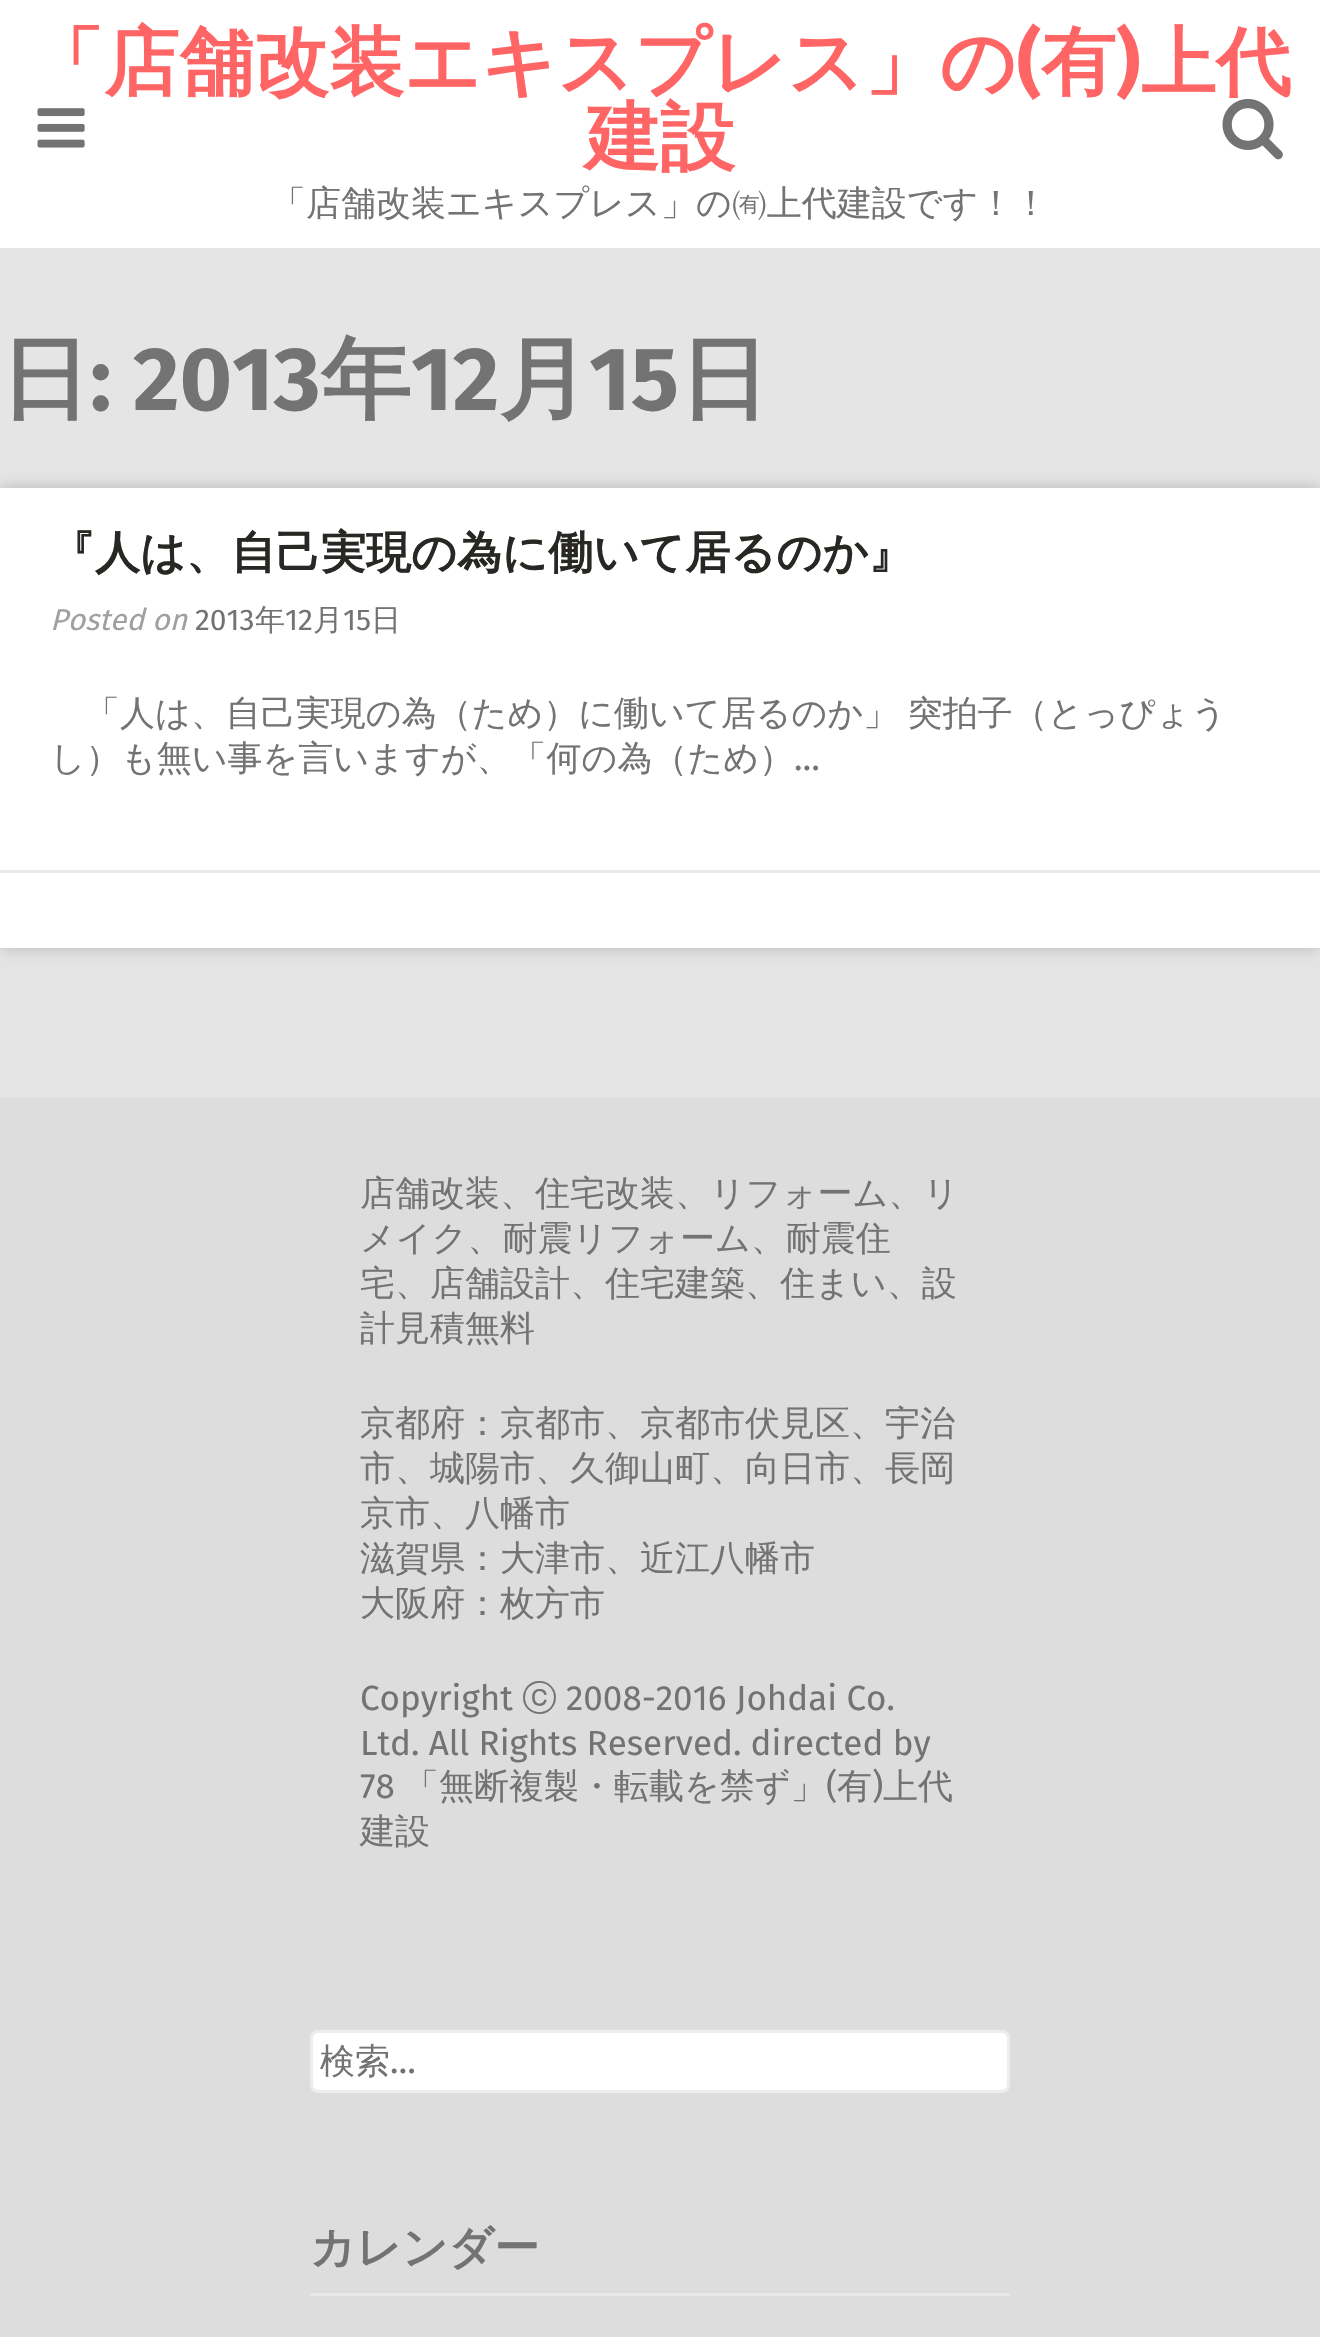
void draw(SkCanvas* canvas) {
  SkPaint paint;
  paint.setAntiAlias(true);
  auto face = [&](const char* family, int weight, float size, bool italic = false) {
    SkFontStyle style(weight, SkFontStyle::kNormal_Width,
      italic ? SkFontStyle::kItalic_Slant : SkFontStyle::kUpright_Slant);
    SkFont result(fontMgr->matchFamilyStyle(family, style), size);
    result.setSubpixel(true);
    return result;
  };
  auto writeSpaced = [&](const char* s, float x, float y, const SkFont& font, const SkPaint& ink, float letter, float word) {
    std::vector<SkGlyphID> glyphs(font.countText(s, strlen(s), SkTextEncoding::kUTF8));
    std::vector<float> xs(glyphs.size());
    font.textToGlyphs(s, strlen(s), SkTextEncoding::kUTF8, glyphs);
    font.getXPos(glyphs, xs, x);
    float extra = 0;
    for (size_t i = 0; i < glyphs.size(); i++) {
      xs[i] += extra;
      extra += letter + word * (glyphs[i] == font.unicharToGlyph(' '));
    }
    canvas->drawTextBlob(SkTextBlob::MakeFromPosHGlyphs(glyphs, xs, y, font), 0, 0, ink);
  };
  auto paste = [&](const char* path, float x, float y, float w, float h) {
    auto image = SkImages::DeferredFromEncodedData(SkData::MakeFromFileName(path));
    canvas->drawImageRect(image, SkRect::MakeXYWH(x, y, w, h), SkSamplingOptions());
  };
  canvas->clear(0xffe5e5e5);
  paint.setColor(0xffffffff);
  canvas->drawRect(SkRect::MakeXYWH(0, 0, 1320, 248), paint);
  paste("img/1.png", 37, 108, 48, 40);
  paste("img/2.png", 1222, 98, 61, 62);
  paint.setColor(0x33000000);
  paint.setMaskFilter(SkMaskFilter::MakeBlur(kNormal_SkBlurStyle, 7.5f));
  canvas->drawRect(SkRect::MakeXYWH(0, 488, 1320, 460), paint);
  paint.setMaskFilter(nullptr);
  {
    const struct { float x, y, w, h; SkColor color; } items[] = {
      {0, 488, 1320, 460, 0xffffffff},
      {0, 870, 1320, 3, 0xffe9e9e9},
      {0, 1098, 1320, 1239, 0xffdddddd},
    };
    for (auto [x, y, w, h, color] : items) {
      paint.setColor(color);
      canvas->drawRect(SkRect::MakeXYWH(x, y, w, h), paint);
    }
  }
  paint.setColor(0xffffffff);
  canvas->drawRoundRect(SkRect::MakeXYWH(311.5f, 2031.5f, 697, 60), 6.5f, 6.5f, paint);
  paint.setStroke(true);
  paint.setStrokeWidth(3);
  paint.setColor(0xffededed);
  canvas->drawRoundRect(SkRect::MakeXYWH(311.5f, 2031.5f, 697, 60), 6.5f, 6.5f, paint);
  paint.setStroke(false);
  paint.setColor(0xffe9e9e9);
  canvas->drawRect(SkRect::MakeXYWH(310, 2293, 700, 3), paint);
  auto f0 = face("WenQuanYi Zen Hei", 700, 75);
  paint.setColor(0xffff6565);
  canvas->drawString("「店舗改装エキスプレス」の", 29, 88, f0, paint);
  auto f1 = face("Fira Sans", 700, 75);
  canvas->drawString("(", 1017, 88, f1, paint);
  canvas->drawString("有", 1041, 88, f0, paint);
  canvas->drawString(")", 1116, 88, f1, paint);
  canvas->drawString("上代", 1141, 88, f0, paint);
  canvas->drawString("建設", 585, 163, f0, paint);
  auto f2 = face("WenQuanYi Zen Hei", 500, 35);
  paint.setColor(0xff737373);
  canvas->drawString("「店舗改装エキスプレス」の㈲上代建設です！！", 271, 215, f2, paint);
  auto f3 = face("WenQuanYi Zen Hei", 700, 90);
  canvas->drawString("日", 0, 410, f3, paint);
  auto f4 = face("Fira Sans", 700, 90);
  canvas->drawString(": 2013", 90, 410, f4, paint);
  canvas->drawString("年", 321, 410, f3, paint);
  canvas->drawString("12", 411, 410, f4, paint);
  canvas->drawString("月", 499, 410, f3, paint);
  canvas->drawString("15", 589, 410, f4, paint);
  canvas->drawString("日", 679, 410, f3, paint);
  auto f5 = face("WenQuanYi Zen Hei", 700, 45);
  paint.setColor(0xff282724);
  canvas->drawString("『人は、自己実現の為に働いて居るのか』", 50, 568, f5, paint);
  auto f6 = face("Fira Sans", 400, 30, true);
  paint.setColor(0xffa0a0a0);
  canvas->drawString("Posted on", 50, 630, f6, paint);
  auto f7 = face("Fira Sans", 400, 30);
  paint.setColor(0xff737373);
  canvas->drawString("2013", 195, 630, f7, paint);
  auto f8 = face("WenQuanYi Zen Hei", 500, 30);
  canvas->drawString("年", 255, 630, f8, paint);
  canvas->drawString("12", 285, 630, f7, paint);
  canvas->drawString("月", 313, 630, f8, paint);
  canvas->drawString("15", 343, 630, f7, paint);
  canvas->drawString("日", 371, 630, f8, paint);
  writeSpaced("「人は、自己実現の為（ため）に働いて居るのか」 突拍子（とっぴょう", 85, 725, f2, paint, 0, -1);
  canvas->drawString("し）も無い事を言いますが、「何の為（ため）", 50, 770, f2, paint);
  auto f9 = face("Fira Sans", 400, 35);
  canvas->drawString("…", 794, 770, f9, paint);
  {
    const struct { const char* s; float x, y; } items[] = {
      {"店舗改装、住宅改装、リフォーム、リ", 360, 1205},
      {"メイク、耐震リフォーム、耐震住", 360, 1250},
      {"宅、店舗設計、住宅建築、住まい、設", 360, 1295},
      {"計見積無料", 360, 1340},
      {"京都府：京都市、京都市伏見区、宇治", 360, 1435},
      {"市、城陽市、久御山町、向日市、長岡", 360, 1480},
      {"京市、八幡市", 360, 1525},
      {"滋賀県：大津市、近江八幡市", 360, 1570},
      {"大阪府：枚方市", 360, 1615},
    };
    for (auto [s, x, y] : items) {
      canvas->drawString(s, x, y, f2, paint);
    }
  }
  canvas->drawString("Copyright", 360, 1710, f9, paint);
  canvas->drawString("ⓒ", 522, 1710, f2, paint);
  {
    const struct { const char* s; float x, y; } items[] = {
      {"2008-2016 Johdai Co.", 566, 1710},
      {"Ltd. All Rights Reserved. directed by", 360, 1755},
      {"78", 360, 1798},
    };
    for (auto [s, x, y] : items) {
      canvas->drawString(s, x, y, f9, paint);
    }
  }
  canvas->drawString("「無断複製・転載を禁ず」", 404, 1798, f2, paint);
  canvas->drawString("(", 826, 1798, f9, paint);
  canvas->drawString("有", 837, 1798, f2, paint);
  canvas->drawString(")", 872, 1798, f9, paint);
  {
    const struct { const char* s; float x, y; } items[] = {
      {"上代", 883, 1798},
      {"建設", 360, 1843},
      {"検索", 320, 2073},
    };
    for (auto [s, x, y] : items) {
      canvas->drawString(s, x, y, f2, paint);
    }
  }
  canvas->drawString("…", 390, 2073, f9, paint);
  canvas->drawString("カレンダー", 310, 2263, f5, paint);
}
